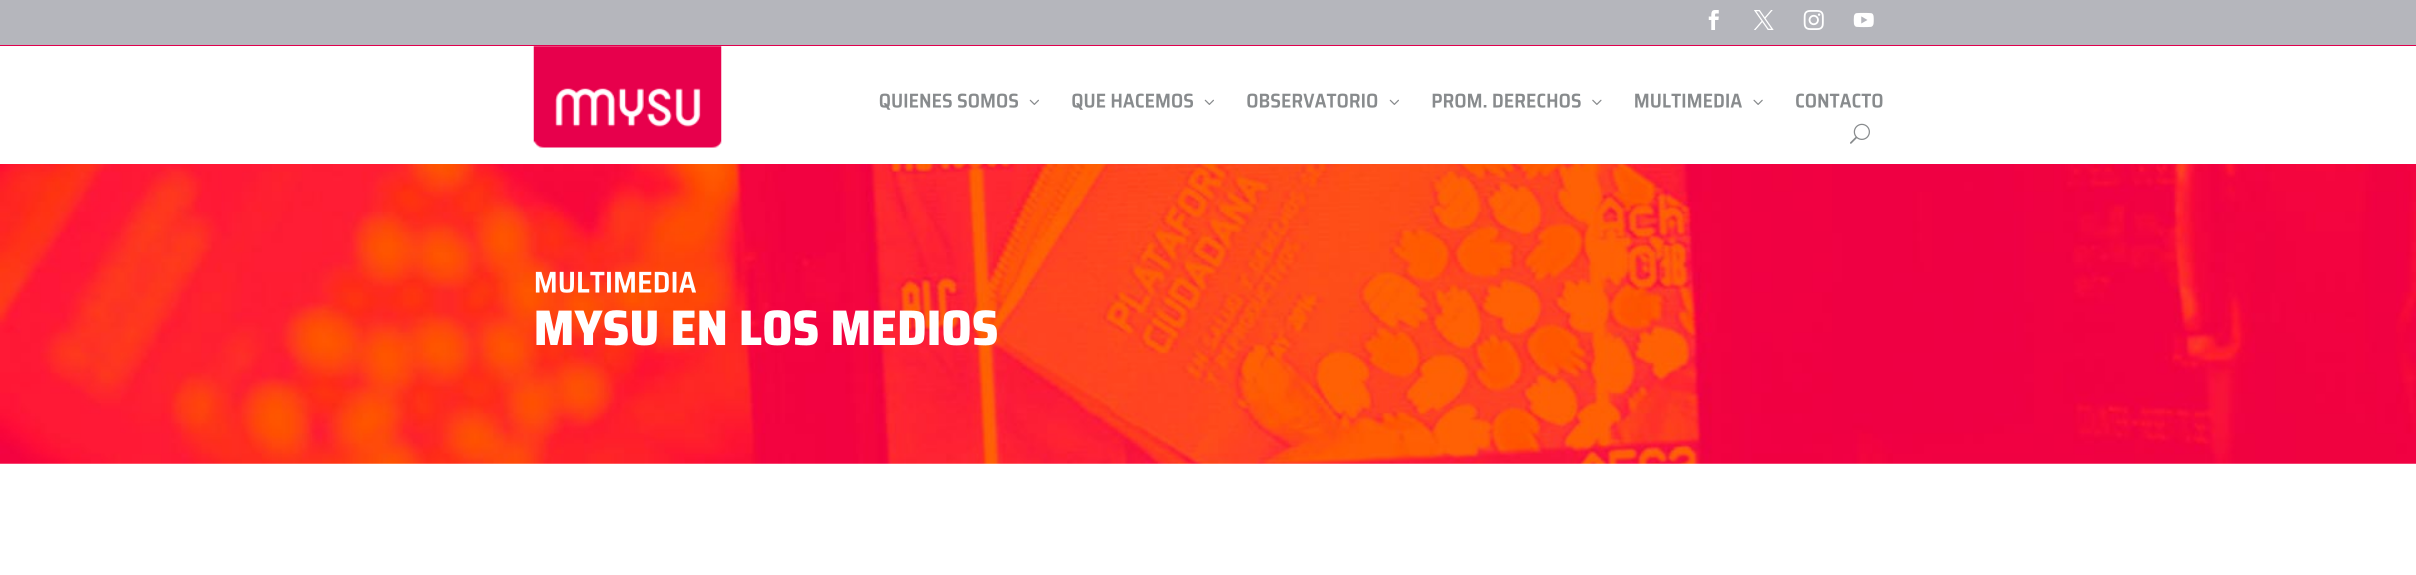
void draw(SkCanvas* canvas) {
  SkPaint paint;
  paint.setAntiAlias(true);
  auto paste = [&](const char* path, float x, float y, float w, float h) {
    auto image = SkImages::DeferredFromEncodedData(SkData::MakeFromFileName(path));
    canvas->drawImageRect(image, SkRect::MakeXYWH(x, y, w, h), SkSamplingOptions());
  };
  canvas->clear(0xffffffff);
  paint.setColor(0xffb5b6bc);
  canvas->drawRect(SkRect::MakeXYWH(0, 0, 2416, 45), paint);
  paste("img/1.png", 1708, 10, 11, 20);
  paste("img/2.png", 1754, 10, 20, 20);
  paste("img/3.png", 1803, 10, 21, 20);
  paste("img/4.png", 1853, 12, 21, 16);
  paint.setColor(0xffe0004d);
  canvas->drawRect(SkRect::MakeXYWH(0, 45, 2416, 1), paint);
  paste("img/5.png", 533, 46, 189, 102);
  paste("img/6.png", 879, 93, 139, 17);
  paste("img/7.png", 1029, 99, 10, 6);
  paste("img/8.png", 1072, 93, 121, 17);
  paste("img/7.png", 1204, 99, 10, 6);
  paste("img/9.png", 1247, 93, 131, 15);
  paste("img/7.png", 1389, 99, 10, 6);
  paste("img/10.png", 1432, 93, 149, 15);
  paste("img/11.png", 1592, 99, 10, 6);
  paste("img/12.png", 1635, 93, 107, 15);
  paste("img/13.png", 1753, 99, 10, 6);
  paste("img/14.png", 1796, 93, 87, 15);
  paste("img/15.png", 1850, 123, 20, 21);
  paste("img/16.png", 0, 164, 2416, 300);
  paste("img/17.png", 535, 271, 161, 22);
  paste("img/18.png", 536, 310, 461, 36);
}
